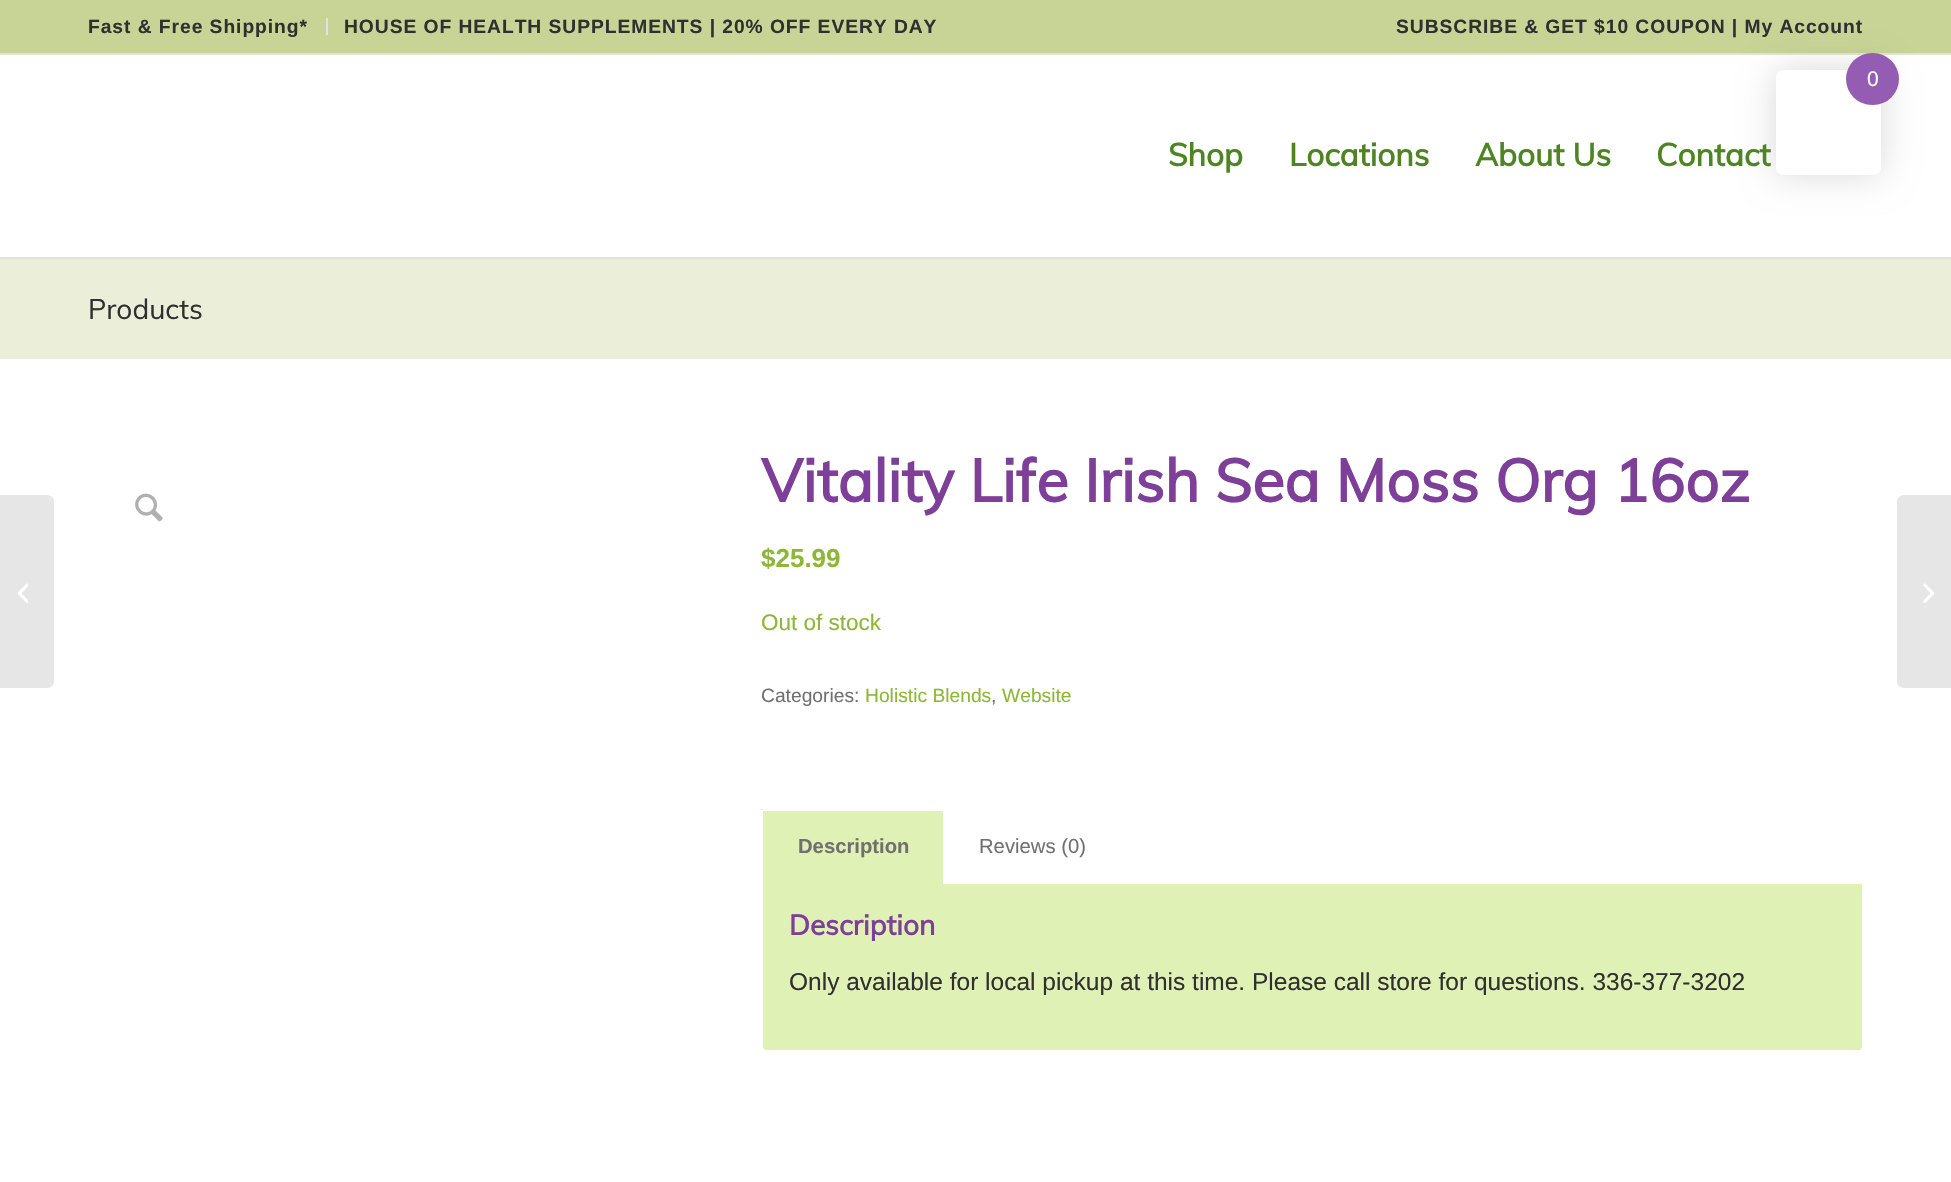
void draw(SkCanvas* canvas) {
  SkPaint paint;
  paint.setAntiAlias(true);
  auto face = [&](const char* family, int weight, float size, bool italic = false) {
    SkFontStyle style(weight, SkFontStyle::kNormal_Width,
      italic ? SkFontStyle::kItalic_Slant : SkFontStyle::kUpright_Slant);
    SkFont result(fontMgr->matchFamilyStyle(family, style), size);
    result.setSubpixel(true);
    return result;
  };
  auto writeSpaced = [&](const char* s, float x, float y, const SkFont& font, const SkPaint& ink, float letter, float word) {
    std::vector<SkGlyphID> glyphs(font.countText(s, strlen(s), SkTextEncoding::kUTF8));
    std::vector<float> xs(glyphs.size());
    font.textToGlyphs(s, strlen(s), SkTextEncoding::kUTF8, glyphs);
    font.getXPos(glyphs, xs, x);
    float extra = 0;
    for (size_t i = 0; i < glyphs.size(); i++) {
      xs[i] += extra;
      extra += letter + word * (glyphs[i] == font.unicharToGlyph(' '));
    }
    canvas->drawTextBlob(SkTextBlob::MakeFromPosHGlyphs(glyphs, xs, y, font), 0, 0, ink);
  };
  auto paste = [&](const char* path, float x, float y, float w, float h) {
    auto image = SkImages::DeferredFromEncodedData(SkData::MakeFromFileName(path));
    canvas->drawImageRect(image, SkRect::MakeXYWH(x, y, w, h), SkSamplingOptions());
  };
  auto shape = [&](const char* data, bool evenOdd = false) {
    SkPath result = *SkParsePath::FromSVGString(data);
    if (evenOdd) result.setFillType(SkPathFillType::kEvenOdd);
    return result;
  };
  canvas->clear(0xffffffff);
  {
    const struct { float x, y, w, h; SkColor color; } items[] = {
      {0, 0, 1951, 53, 0xffc8d396},
      {0, 53, 1951, 2, 0xffe1e1e1},
      {326, 18, 2, 17, 0xffe1e1e1},
      {0, 257, 1951, 2, 0xffe1e1e1},
    };
    for (auto [x, y, w, h, color] : items) {
      paint.setColor(color);
      canvas->drawRect(SkRect::MakeXYWH(x, y, w, h), paint);
    }
  }
  paint.setColor(0xffe6e6e6);
  canvas->drawPath(shape("M0 495H47C51 495 54 498 54 502V681C54 685 51 688 47 688H0Z"), paint);
  paste("img/1.png", 18, 583, 10, 20);
  paint.setColor(0xffebefda);
  canvas->drawRect(SkRect::MakeXYWH(0, 259, 1951, 100), paint);
  paste("img/2.png", 135, 493, 28, 29);
  paint.setColor(0xffe0f1b5);
  canvas->drawPath(shape("M762 883H1863V1047C1863 1049 1861 1051 1859 1051H766C764 1051 762 1049 762 1047Z"), paint);
  paint.setStroke(true);
  paint.setStrokeWidth(2);
  paint.setColor(0xffffffff);
  canvas->drawPath(shape("M762 883H1863V1047C1863 1049 1861 1051 1859 1051H766C764 1051 762 1049 762 1047Z"), paint);
  paint.setStroke(false);
  {
    const struct { float x, y, w, h; SkColor color; } items[] = {
      {761, 809, 182, 75, 0xffe0f1b5},
      {763, 809, 182, 2, 0xffffffff},
      {761, 810, 2, 74, 0xffffffff},
    };
    for (auto [x, y, w, h, color] : items) {
      paint.setColor(color);
      canvas->drawRect(SkRect::MakeXYWH(x, y, w, h), paint);
    }
  }
  paint.setColor(0xffe6e6e6);
  canvas->drawPath(shape("M1904 495H1951V688H1904C1900 688 1897 685 1897 681V502C1897 498 1900 495 1904 495Z"), paint);
  paste("img/3.png", 1923, 583, 11, 20);
  paint.setColor(0x26000000);
  paint.setMaskFilter(SkMaskFilter::MakeBlur(kNormal_SkBlurStyle, 17.5f));
  canvas->drawRoundRect(SkRect::MakeXYWH(1776, 70, 105, 105), 7, 7, paint);
  paint.setMaskFilter(nullptr);
  paint.setColor(0xffffffff);
  canvas->drawRoundRect(SkRect::MakeXYWH(1776, 70, 105, 105), 7, 7, paint);
  paint.setColor(0xff955cb4);
  canvas->drawRoundRect(SkRect::MakeXYWH(1846, 53, 53, 52), 26, 26, paint);
  auto f0 = face("Liberation Sans", 700, 19.25f);
  paint.setColor(0xff303030);
  {
    const struct { const char* s; float x, y; } items[] = {
      {"Fast & Free Shipping*", 88, 33},
      {"HOUSE OF HEALTH SUPPLEMENTS | 20% OFF EVERY DAY", 344, 33},
      {"SUBSCRIBE & GET $10 COUPON | My Account", 1396, 33},
    };
    for (auto [s, x, y] : items) {
      writeSpaced(s, x, y, f0, paint, 0.95f, 0);
    }
  }
  auto f1 = face("Muli", 700, 31.5f);
  paint.setColor(0xff4e8522);
  {
    const struct { const char* s; float x, y; } items[] = {
      {"Shop", 1168, 166},
      {"Locations", 1289, 166},
      {"About Us", 1475, 166},
      {"Contact", 1656, 166},
    };
    for (auto [s, x, y] : items) {
      canvas->drawString(s, x, y, f1, paint);
    }
  }
  auto f2 = face("Muli", 400, 28);
  paint.setColor(0xff303030);
  canvas->drawString("Products", 88, 319, f2, paint);
  auto f3 = face("Muli", 700, 59.5f);
  paint.setColor(0xff7d3f98);
  canvas->drawString("Vitality Life Irish Sea Moss Org 16oz", 761, 502, f3, paint);
  auto f4 = face("Liberation Sans", 700, 26);
  paint.setColor(0xff8cb737);
  canvas->drawString("$25.99", 761, 567, f4, paint);
  auto f5 = face("Liberation Sans", 400, 22.5f);
  canvas->drawString("Out of stock", 761, 630, f5, paint);
  auto f6 = face("Liberation Sans", 400, 19.25f);
  paint.setColor(0xff707070);
  canvas->drawString("Categories:", 761, 702, f6, paint);
  paint.setColor(0xff8cb737);
  canvas->drawString("Holistic Blends", 865, 702, f6, paint);
  paint.setColor(0xff707070);
  canvas->drawString(",", 991, 702, f6, paint);
  paint.setColor(0xff8cb737);
  canvas->drawString("Website", 1002, 702, f6, paint);
  auto f7 = face("Liberation Sans", 700, 20.25f);
  paint.setColor(0xff707070);
  canvas->drawString("Description", 798, 853, f7, paint);
  auto f8 = face("Liberation Sans", 400, 20.25f);
  canvas->drawString("Reviews (0)", 979, 853, f8, paint);
  auto f9 = face("Muli", 700, 28);
  paint.setColor(0xff7d3f98);
  canvas->drawString("Description", 789, 935, f9, paint);
  auto f10 = face("Liberation Sans", 400, 24.5f);
  paint.setColor(0xff303030);
  canvas->drawString("Only available for local pickup at this time. Please call store for questions. 336-377-3202", 789, 990, f10, paint);
  auto f11 = face("Liberation Sans", 400, 21);
  paint.setColor(0xffffffff);
  canvas->drawString("0", 1867, 86, f11, paint);
}
